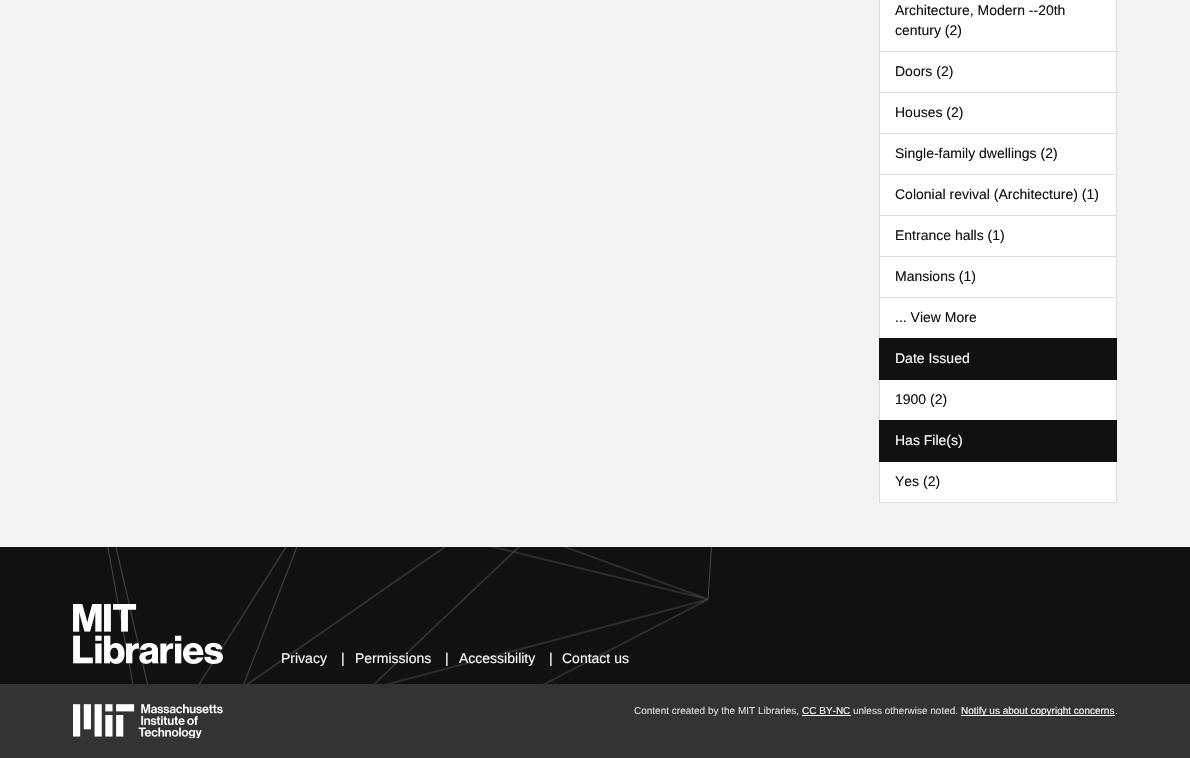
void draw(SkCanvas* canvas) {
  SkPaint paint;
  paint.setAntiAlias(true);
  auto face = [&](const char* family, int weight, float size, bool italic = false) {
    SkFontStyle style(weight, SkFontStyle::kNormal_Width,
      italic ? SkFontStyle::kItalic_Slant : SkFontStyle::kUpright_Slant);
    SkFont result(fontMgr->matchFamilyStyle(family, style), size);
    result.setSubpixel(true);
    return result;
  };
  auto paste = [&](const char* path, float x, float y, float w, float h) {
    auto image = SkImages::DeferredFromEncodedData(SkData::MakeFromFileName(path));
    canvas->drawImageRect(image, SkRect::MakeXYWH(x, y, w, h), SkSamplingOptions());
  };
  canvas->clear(0xfff3f3f3);
  paint.setColor(0xffffffff);
  canvas->drawRect(SkRect::MakeXYWH(879.5f, -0.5f, 237, 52), paint);
  paint.setStroke(true);
  paint.setStrokeWidth(1);
  paint.setColor(0xffdddddd);
  canvas->drawRect(SkRect::MakeXYWH(879.5f, -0.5f, 237, 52), paint);
  paint.setStroke(false);
  paint.setColor(0xffffffff);
  canvas->drawRect(SkRect::MakeXYWH(879.5f, 51.5f, 237, 41), paint);
  paint.setStroke(true);
  paint.setColor(0xffdddddd);
  canvas->drawRect(SkRect::MakeXYWH(879.5f, 51.5f, 237, 41), paint);
  paint.setStroke(false);
  paint.setColor(0xffffffff);
  canvas->drawRect(SkRect::MakeXYWH(879.5f, 92.5f, 237, 41), paint);
  paint.setStroke(true);
  paint.setColor(0xffdddddd);
  canvas->drawRect(SkRect::MakeXYWH(879.5f, 92.5f, 237, 41), paint);
  paint.setStroke(false);
  paint.setColor(0xffffffff);
  canvas->drawRect(SkRect::MakeXYWH(879.5f, 133.5f, 237, 41), paint);
  paint.setStroke(true);
  paint.setColor(0xffdddddd);
  canvas->drawRect(SkRect::MakeXYWH(879.5f, 133.5f, 237, 41), paint);
  paint.setStroke(false);
  paint.setColor(0xffffffff);
  canvas->drawRect(SkRect::MakeXYWH(879.5f, 174.5f, 237, 41), paint);
  paint.setStroke(true);
  paint.setColor(0xffdddddd);
  canvas->drawRect(SkRect::MakeXYWH(879.5f, 174.5f, 237, 41), paint);
  paint.setStroke(false);
  paint.setColor(0xffffffff);
  canvas->drawRect(SkRect::MakeXYWH(879.5f, 215.5f, 237, 41), paint);
  paint.setStroke(true);
  paint.setColor(0xffdddddd);
  canvas->drawRect(SkRect::MakeXYWH(879.5f, 215.5f, 237, 41), paint);
  paint.setStroke(false);
  paint.setColor(0xffffffff);
  canvas->drawRect(SkRect::MakeXYWH(879.5f, 256.5f, 237, 41), paint);
  paint.setStroke(true);
  paint.setColor(0xffdddddd);
  canvas->drawRect(SkRect::MakeXYWH(879.5f, 256.5f, 237, 41), paint);
  paint.setStroke(false);
  paint.setColor(0xffffffff);
  canvas->drawRect(SkRect::MakeXYWH(879.5f, 297.5f, 237, 41), paint);
  paint.setStroke(true);
  paint.setColor(0xffdddddd);
  canvas->drawRect(SkRect::MakeXYWH(879.5f, 297.5f, 237, 41), paint);
  paint.setStroke(false);
  paint.setColor(0xffffffff);
  canvas->drawRect(SkRect::MakeXYWH(879.5f, 379.5f, 237, 41), paint);
  paint.setStroke(true);
  paint.setColor(0xffdddddd);
  canvas->drawRect(SkRect::MakeXYWH(879.5f, 379.5f, 237, 41), paint);
  paint.setStroke(false);
  paint.setColor(0xff111111);
  canvas->drawRect(SkRect::MakeXYWH(879, 338, 238, 42), paint);
  paint.setColor(0xffffffff);
  canvas->drawRect(SkRect::MakeXYWH(879.5f, 461.5f, 237, 41), paint);
  paint.setStroke(true);
  paint.setColor(0xffdddddd);
  canvas->drawRect(SkRect::MakeXYWH(879.5f, 461.5f, 237, 41), paint);
  paint.setStroke(false);
  paint.setColor(0xff111111);
  canvas->drawRect(SkRect::MakeXYWH(879, 420, 238, 42), paint);
  canvas->drawRect(SkRect::MakeXYWH(0, 547, 1190, 137), paint);
  paste("img/1.png", 107, 547, 605, 137);
  paste("img/2.png", 73, 604, 150, 60);
  paint.setColor(0xff333333);
  canvas->drawRect(SkRect::MakeXYWH(0, 684, 1190, 74), paint);
  paste("img/3.png", 73, 704, 150, 34);
  paint.setColor(0xfffafafa);
  canvas->drawRect(SkRect::MakeXYWH(802, 715, 49, 1), paint);
  canvas->drawRect(SkRect::MakeXYWH(961, 715, 154, 1), paint);
  auto f0 = face("Liberation Sans", 400, 14);
  paint.setColor(0xff111111);
  {
    const struct { const char* s; float x, y; } items[] = {
      {"Architecture, Modern --20th", 895, 15},
      {"century (2)", 895, 35},
      {"Doors (2)", 895, 76},
      {"Houses (2)", 895, 117},
      {"Single-family dwellings (2)", 895, 158},
      {"Colonial revival (Architecture) (1)", 895, 199},
      {"Entrance halls (1)", 895, 240},
      {"Mansions (1)", 895, 281},
      {"... View More", 895, 322},
    };
    for (auto [s, x, y] : items) {
      canvas->drawString(s, x, y, f0, paint);
    }
  }
  paint.setColor(0xfffafafa);
  canvas->drawString("Date Issued", 895, 363, f0, paint);
  paint.setColor(0xff111111);
  canvas->drawString("1900 (2)", 895, 404, f0, paint);
  paint.setColor(0xfffafafa);
  canvas->drawString("Has File(s)", 895, 445, f0, paint);
  paint.setColor(0xff111111);
  canvas->drawString("Yes (2)", 895, 486, f0, paint);
  paint.setColor(0xfffafafa);
  {
    const struct { const char* s; float x, y; } items[] = {
      {"Privacy", 281, 663},
      {"|", 341, 663},
      {"Permissions", 355, 663},
      {"|", 445, 663},
      {"Accessibility", 459, 663},
      {"|", 549, 663},
      {"Contact us", 562, 663},
    };
    for (auto [s, x, y] : items) {
      canvas->drawString(s, x, y, f0, paint);
    }
  }
  auto f1 = face("Liberation Sans", 400, 10);
  paint.setColor(0xffdedede);
  canvas->drawString("Content created by the MIT Libraries,", 634, 714, f1, paint);
  paint.setColor(0xfffafafa);
  canvas->drawString("CC BY-NC", 802, 714, f1, paint);
  paint.setColor(0xffdedede);
  canvas->drawString("unless otherwise noted.", 853, 714, f1, paint);
  paint.setColor(0xfffafafa);
  canvas->drawString("Notify us about copyright concerns", 961, 714, f1, paint);
  paint.setColor(0xffdedede);
  canvas->drawString(".", 1115, 714, f1, paint);
}
